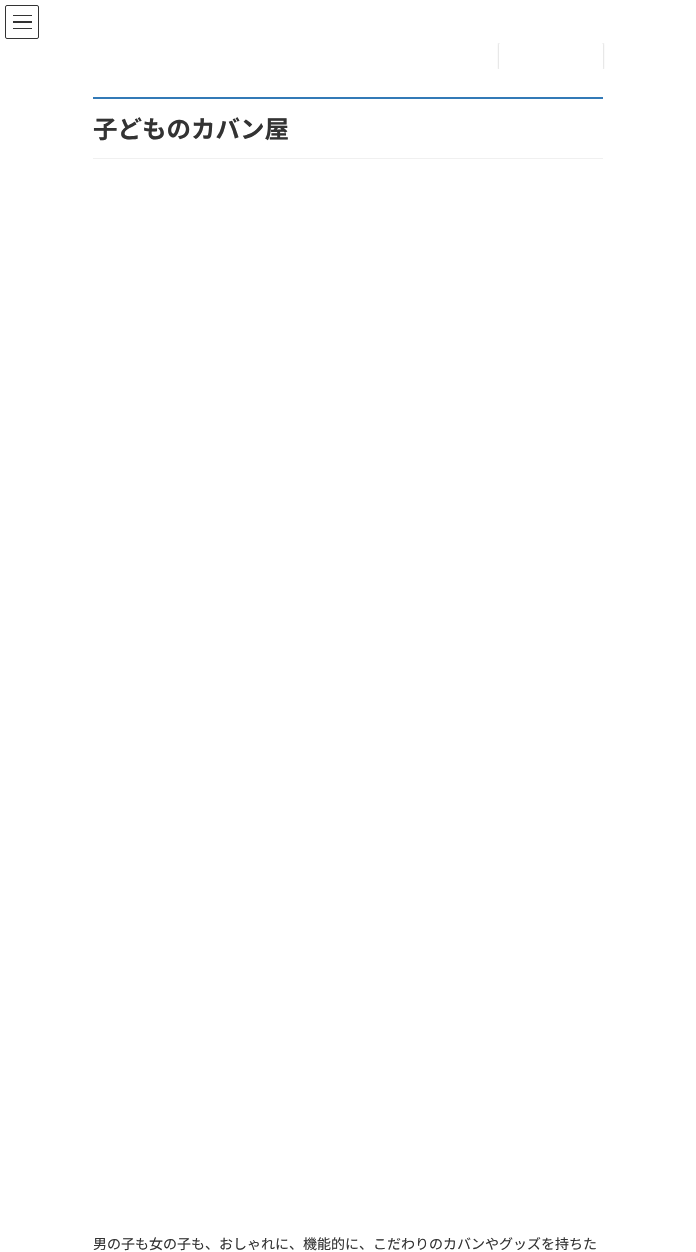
void draw(SkCanvas* canvas) {
  SkPaint paint;
  paint.setAntiAlias(true);
  auto face = [&](const char* family, int weight, float size, bool italic = false) {
    SkFontStyle style(weight, SkFontStyle::kNormal_Width,
      italic ? SkFontStyle::kItalic_Slant : SkFontStyle::kUpright_Slant);
    SkFont result(fontMgr->matchFamilyStyle(family, style), size);
    result.setSubpixel(true);
    return result;
  };
  auto shape = [&](const char* data, bool evenOdd = false) {
    SkPath result = *SkParsePath::FromSVGString(data);
    if (evenOdd) result.setFillType(SkPathFillType::kEvenOdd);
    return result;
  };
  canvas->clear(0xffffffff);
  {
    const struct { float x, y, w, h; SkColor color; } items[] = {
      {13, 15, 19, 1, 0xff333333},
      {13, 21, 19, 2, 0xff333333},
      {13, 28, 19, 1, 0xff333333},
    };
    for (auto [x, y, w, h, color] : items) {
      paint.setColor(color);
      canvas->drawRect(SkRect::MakeXYWH(x, y, w, h), paint);
    }
  }
  paint.setStroke(true);
  paint.setStrokeWidth(1);
  canvas->drawRoundRect(SkRect::MakeXYWH(5.5f, 5.5f, 33, 33), 1.5f, 1.5f, paint);
  canvas->save();
  canvas->clipRect(SkRect::MakeXYWH(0, 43, 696, 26));
  canvas->clipPath(shape("M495 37H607V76H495ZM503 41H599C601 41 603 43 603 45V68C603 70 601 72 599 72H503C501 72 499 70 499 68V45C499 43 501 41 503 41Z", true), true);
  paint.setStroke(false);
  paint.setColor(0xffaaaaaa);
  paint.setMaskFilter(SkMaskFilter::MakeBlur(kNormal_SkBlurStyle, 1));
  canvas->drawRoundRect(SkRect::MakeXYWH(499, 41, 104, 31), 4, 4, paint);
  paint.setMaskFilter(nullptr);
  canvas->restore();
  canvas->save();
  canvas->clipRect(SkRect::MakeXYWH(0, 43, 696, 26));
  paint.setStroke(true);
  paint.setColor(0xffffffff);
  canvas->drawRoundRect(SkRect::MakeXYWH(499.5f, 41.5f, 103, 30), 3.5f, 3.5f, paint);
  canvas->restore();
  paint.setStroke(false);
  paint.setColor(0xff337ab7);
  canvas->drawRect(SkRect::MakeXYWH(93, 97, 510, 2), paint);
  paint.setColor(0xfff0f0f0);
  canvas->drawRect(SkRect::MakeXYWH(93, 158, 510, 1), paint);
  auto f0 = face("Noto Sans JP", 700, 24.5f);
  paint.setColor(0xff333333);
  canvas->drawString("子どものカバン屋", 93, 138, f0, paint);
  auto f1 = face("Noto Sans JP", 400, 14);
  canvas->drawString("男の子も女の子も、おしゃれに、機能的に、こだわりのカバンやグッズを持ちた", 93, 1249, f1, paint);
}
